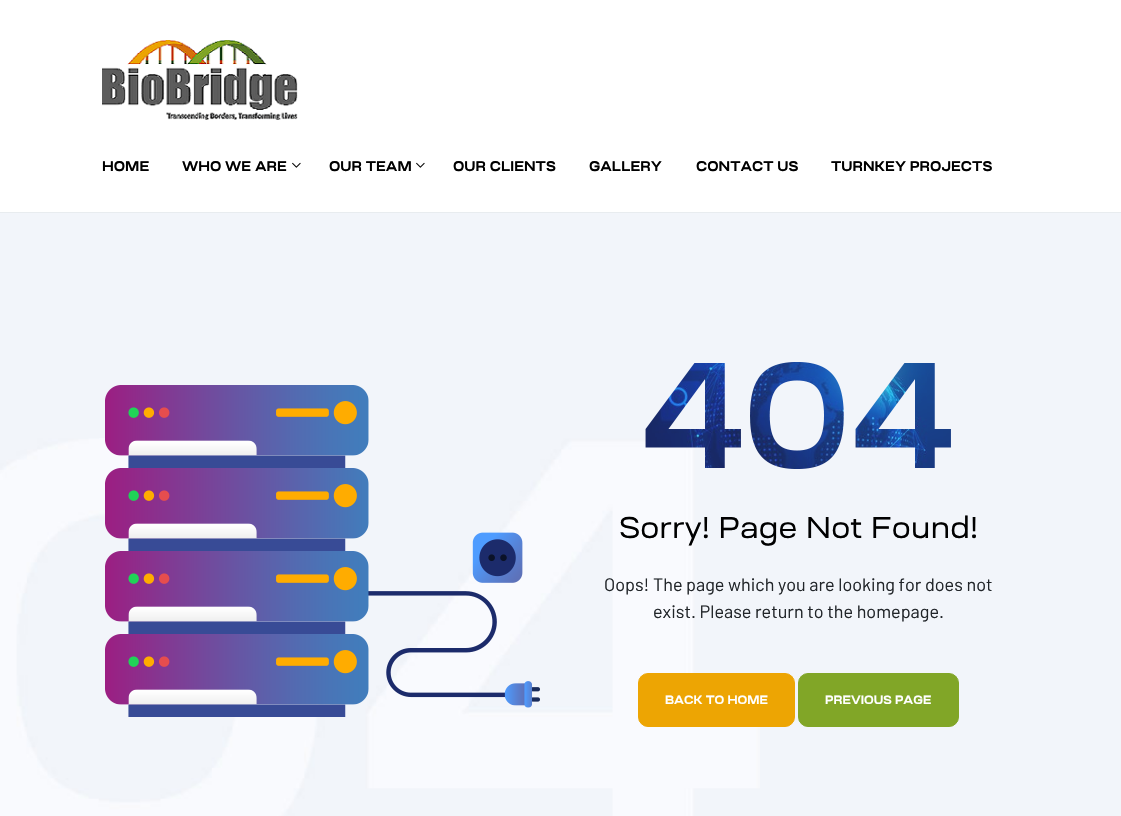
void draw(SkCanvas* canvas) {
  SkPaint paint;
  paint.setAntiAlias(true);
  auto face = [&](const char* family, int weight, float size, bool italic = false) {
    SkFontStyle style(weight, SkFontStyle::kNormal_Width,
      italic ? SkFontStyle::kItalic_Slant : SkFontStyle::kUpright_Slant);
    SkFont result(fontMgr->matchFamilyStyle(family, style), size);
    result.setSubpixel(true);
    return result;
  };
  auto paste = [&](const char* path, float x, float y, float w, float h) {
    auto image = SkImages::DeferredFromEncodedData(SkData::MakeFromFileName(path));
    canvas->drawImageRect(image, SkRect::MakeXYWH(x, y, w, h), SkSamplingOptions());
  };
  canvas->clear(0xffffffff);
  paint.setColor(0xffe8ecef);
  canvas->drawRect(SkRect::MakeXYWH(0, 212, 1121, 1), paint);
  paste("img/1.png", 102, 40, 196, 80);
  paste("img/2.png", 292, 162, 9, 6);
  paste("img/2.png", 416, 162, 9, 6);
  paint.setColor(0xfff2f5fa);
  canvas->drawRect(SkRect::MakeXYWH(0, 213, 1121, 603), paint);
  paste("img/3.png", 0, 438, 760, 378);
  paste("img/4.png", 105, 385, 435, 332);
  paste("img/5.png", 645, 362, 306, 107);
  paint.setColor(0xffeda503);
  canvas->drawRoundRect(SkRect::MakeXYWH(638.5f, 673.5f, 156, 53), 9.5f, 9.5f, paint);
  paint.setStroke(true);
  paint.setStrokeWidth(1);
  canvas->drawRoundRect(SkRect::MakeXYWH(638.5f, 673.5f, 156, 53), 9.5f, 9.5f, paint);
  paint.setStroke(false);
  paint.setColor(0xff81a627);
  canvas->drawRoundRect(SkRect::MakeXYWH(798.5f, 673.5f, 160, 53), 9.5f, 9.5f, paint);
  paint.setStroke(true);
  canvas->drawRoundRect(SkRect::MakeXYWH(798.5f, 673.5f, 160, 53), 9.5f, 9.5f, paint);
  auto f0 = face("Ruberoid", 700, 14);
  paint.setStroke(false);
  paint.setColor(0xff000000);
  {
    const struct { const char* s; float x, y; } items[] = {
      {"HOME", 102, 171},
      {"WHO WE ARE", 182, 171},
      {"OUR TEAM", 329, 171},
      {"OUR CLIENTS", 453, 171},
      {"GALLERY", 589, 171},
      {"CONTACT US", 696, 171},
      {"TURNKEY PROJECTS", 831, 171},
    };
    for (auto [s, x, y] : items) {
      canvas->drawString(s, x, y, f0, paint);
    }
  }
  auto f1 = face("Ruberoid", 400, 30);
  canvas->drawString("Sorry! Page Not Found!", 619, 538, f1, paint);
  auto f2 = face("Barlow", 400, 18);
  paint.setColor(0xff212529);
  canvas->drawString("Oops! The page which you are looking for does not", 604, 591, f2, paint);
  canvas->drawString("exist. Please return to the homepage.", 653, 618, f2, paint);
  auto f3 = face("Ruberoid", 700, 12);
  paint.setColor(0xffffffff);
  canvas->drawString("BACK TO HOME", 665, 704, f3, paint);
  canvas->drawString("PREVIOUS PAGE", 825, 704, f3, paint);
}
